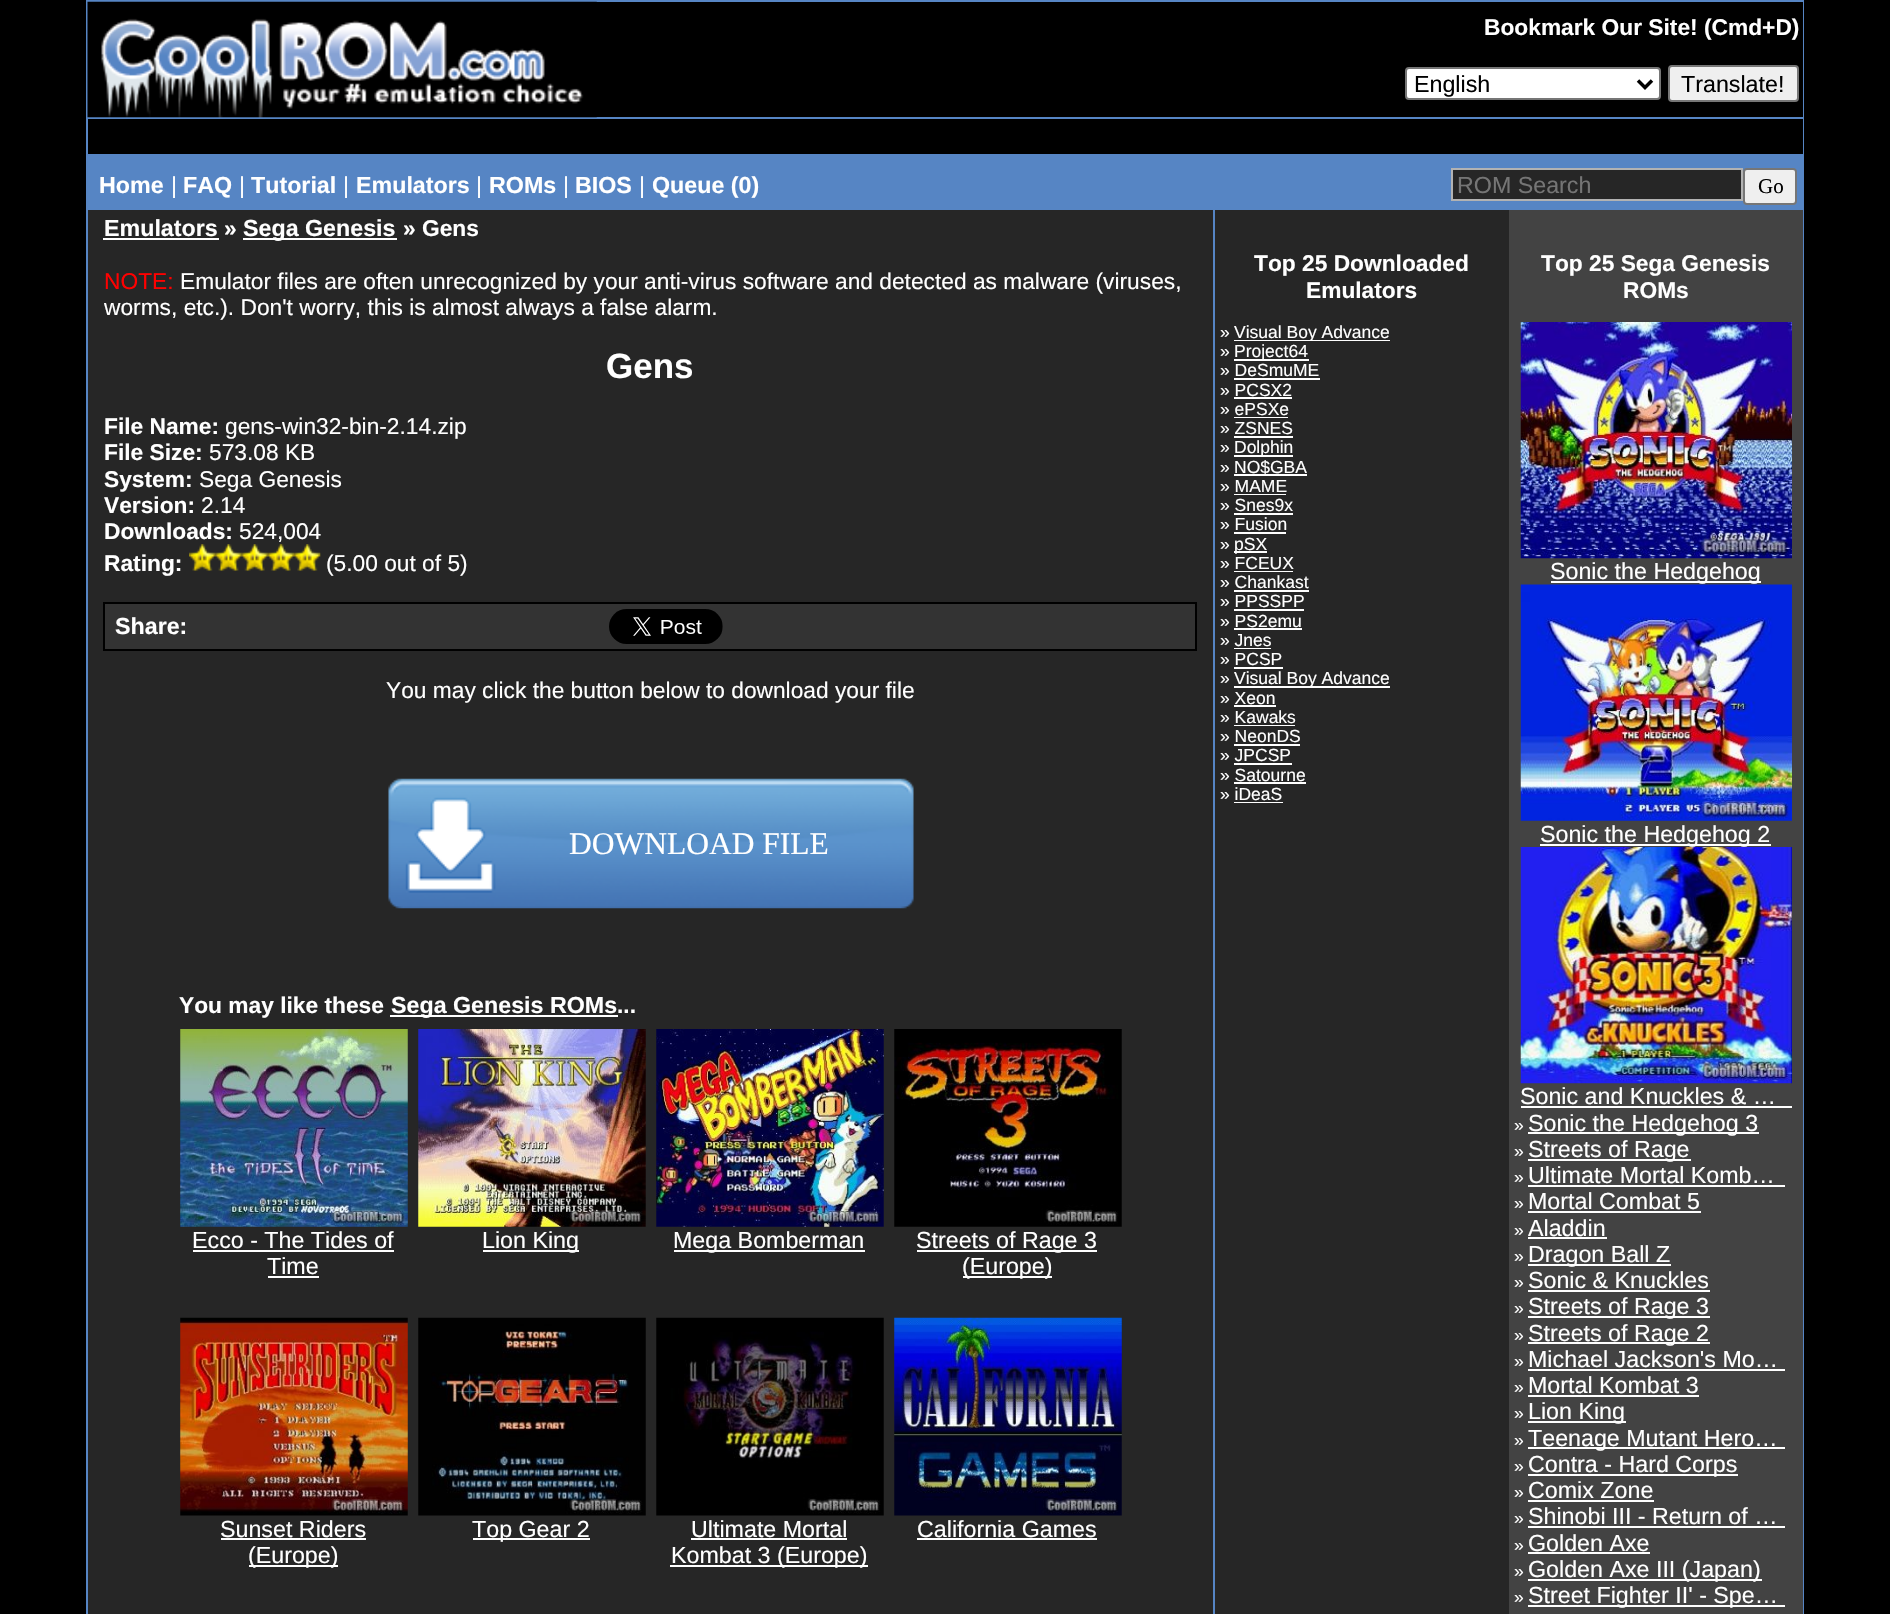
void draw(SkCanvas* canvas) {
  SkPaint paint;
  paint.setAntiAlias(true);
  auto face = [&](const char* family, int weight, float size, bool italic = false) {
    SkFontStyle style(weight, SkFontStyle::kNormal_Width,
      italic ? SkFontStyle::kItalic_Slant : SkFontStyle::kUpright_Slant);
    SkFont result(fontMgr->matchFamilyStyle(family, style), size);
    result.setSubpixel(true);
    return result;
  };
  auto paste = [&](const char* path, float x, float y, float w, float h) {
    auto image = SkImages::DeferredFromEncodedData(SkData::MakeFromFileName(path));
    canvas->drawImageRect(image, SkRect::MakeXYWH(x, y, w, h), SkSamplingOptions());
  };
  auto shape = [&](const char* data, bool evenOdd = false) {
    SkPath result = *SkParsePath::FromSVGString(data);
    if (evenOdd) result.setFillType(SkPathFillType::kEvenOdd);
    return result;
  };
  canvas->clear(0xff000000);
  paint.setColor(0xff5685c4);
  canvas->drawRect(SkRect::MakeXYWH(86, 0, 1718, 1614), paint);
  paint.setColor(0xff000000);
  canvas->drawRect(SkRect::MakeXYWH(596, 2, 1207, 115), paint);
  paste("img/1.png", 87, 1, 510, 117);
  paint.setColor(0xffffffff);
  canvas->drawRoundRect(SkRect::MakeXYWH(1406, 68, 254, 31), 3, 3, paint);
  paint.setStroke(true);
  paint.setStrokeWidth(2);
  paint.setColor(0xff767676);
  canvas->drawRoundRect(SkRect::MakeXYWH(1406, 68, 254, 31), 3, 3, paint);
  paint.setStrokeWidth(3.5f);
  paint.setColor(0xff000000);
  canvas->drawPath(shape("M1638 80.5L1645 87.5L1652 80.5"), paint);
  paint.setStroke(false);
  paint.setColor(0xffefefef);
  canvas->drawRoundRect(SkRect::MakeXYWH(1669, 66, 129, 35), 3, 3, paint);
  paint.setStroke(true);
  paint.setStrokeWidth(2);
  paint.setColor(0xff767676);
  canvas->drawRoundRect(SkRect::MakeXYWH(1669, 66, 129, 35), 3, 3, paint);
  paint.setStroke(false);
  paint.setColor(0xff000000);
  canvas->drawRect(SkRect::MakeXYWH(88, 119, 1715, 35), paint);
  paint.setColor(0xff262626);
  canvas->drawRect(SkRect::MakeXYWH(1452, 169, 290, 31), paint);
  paint.setStroke(true);
  paint.setColor(0xffb2b2b2);
  canvas->drawRect(SkRect::MakeXYWH(1452, 169, 290, 31), paint);
  paint.setStroke(false);
  paint.setColor(0xffefefef);
  canvas->drawRoundRect(SkRect::MakeXYWH(1744, 169, 52, 35), 3, 3, paint);
  paint.setStroke(true);
  paint.setColor(0xff767676);
  canvas->drawRoundRect(SkRect::MakeXYWH(1744, 169, 52, 35), 3, 3, paint);
  paint.setStroke(false);
  {
    const struct { float x, y, w, h; SkColor color; } items[] = {
      {88, 210, 1125, 1404, 0xff262626},
      {103, 238, 116, 2, 0xffffffff},
      {243, 238, 154, 2, 0xffffffff},
    };
    for (auto [x, y, w, h, color] : items) {
      paint.setColor(color);
      canvas->drawRect(SkRect::MakeXYWH(x, y, w, h), paint);
    }
  }
  paste("img/2.png", 189, 544, 27, 27);
  paste("img/3.png", 215, 544, 27, 27);
  paste("img/4.png", 241, 544, 27, 27);
  paste("img/5.png", 267, 544, 27, 27);
  paste("img/6.png", 294, 544, 27, 27);
  paint.setColor(0xff333333);
  canvas->drawRect(SkRect::MakeXYWH(104, 603, 1092, 47), paint);
  paint.setStroke(true);
  paint.setColor(0xff000000);
  canvas->drawRect(SkRect::MakeXYWH(104, 603, 1092, 47), paint);
  paste("img/7.png", 609, 609, 114, 35);
  paste("img/8.png", 388, 778, 526, 131);
  paint.setStroke(false);
  paint.setColor(0xffffffff);
  canvas->drawRect(SkRect::MakeXYWH(390, 1015, 228, 2), paint);
  paste("img/9.png", 180, 1029, 228, 198);
  canvas->drawRect(SkRect::MakeXYWH(193, 1250, 201, 2), paint);
  canvas->drawRect(SkRect::MakeXYWH(268, 1276, 51, 2), paint);
  paste("img/10.png", 418, 1029, 228, 198);
  canvas->drawRect(SkRect::MakeXYWH(483, 1250, 96, 2), paint);
  paste("img/11.png", 656, 1029, 228, 198);
  canvas->drawRect(SkRect::MakeXYWH(674, 1250, 191, 2), paint);
  paste("img/12.png", 894, 1029, 228, 198);
  canvas->drawRect(SkRect::MakeXYWH(917, 1250, 180, 2), paint);
  canvas->drawRect(SkRect::MakeXYWH(963, 1276, 89, 2), paint);
  paste("img/13.png", 180, 1317, 228, 199);
  canvas->drawRect(SkRect::MakeXYWH(221, 1538, 145, 2), paint);
  canvas->drawRect(SkRect::MakeXYWH(249, 1565, 89, 2), paint);
  paste("img/14.png", 418, 1317, 228, 199);
  canvas->drawRect(SkRect::MakeXYWH(473, 1538, 117, 2), paint);
  paste("img/15.png", 656, 1317, 228, 199);
  canvas->drawRect(SkRect::MakeXYWH(691, 1538, 156, 2), paint);
  canvas->drawRect(SkRect::MakeXYWH(670, 1565, 198, 2), paint);
  paste("img/16.png", 894, 1317, 228, 199);
  {
    const struct { float x, y, w, h; SkColor color; } items[] = {
      {917, 1538, 180, 2, 0xffffffff},
      {1215, 210, 294, 35, 0xff262626},
      {1509, 210, 294, 35, 0xff434343},
      {1215, 245, 294, 1369, 0xff262626},
      {1234, 340, 156, 1, 0xffffffff},
      {1234, 359, 75, 2, 0xffffffff},
      {1234, 378, 86, 2, 0xffffffff},
      {1234, 397, 58, 2, 0xffffffff},
      {1234, 417, 54, 1, 0xffffffff},
      {1234, 436, 59, 2, 0xffffffff},
      {1234, 455, 59, 2, 0xffffffff},
      {1234, 474, 73, 2, 0xffffffff},
      {1234, 494, 52, 1, 0xffffffff},
      {1234, 513, 59, 2, 0xffffffff},
      {1234, 532, 52, 2, 0xffffffff},
      {1234, 551, 33, 2, 0xffffffff},
      {1234, 571, 59, 1, 0xffffffff},
      {1234, 590, 75, 2, 0xffffffff},
      {1234, 609, 70, 2, 0xffffffff},
      {1234, 628, 68, 2, 0xffffffff},
      {1234, 648, 37, 1, 0xffffffff},
      {1234, 667, 49, 2, 0xffffffff},
      {1234, 686, 156, 2, 0xffffffff},
      {1234, 705, 42, 2, 0xffffffff},
      {1234, 725, 61, 1, 0xffffffff},
      {1234, 744, 66, 2, 0xffffffff},
      {1234, 763, 58, 2, 0xffffffff},
      {1234, 782, 72, 2, 0xffffffff},
      {1234, 802, 49, 1, 0xffffffff},
      {1509, 245, 294, 1369, 0xff434343},
    };
    for (auto [x, y, w, h, color] : items) {
      paint.setColor(color);
      canvas->drawRect(SkRect::MakeXYWH(x, y, w, h), paint);
    }
  }
  paste("img/17.png", 1520, 322, 272, 237);
  paint.setColor(0xffffffff);
  canvas->drawRect(SkRect::MakeXYWH(1551, 581, 210, 2), paint);
  paste("img/18.png", 1520, 584, 272, 237);
  canvas->drawRect(SkRect::MakeXYWH(1540, 844, 231, 2), paint);
  paste("img/19.png", 1520, 847, 272, 237);
  {
    const struct { float x, y, w, h; SkColor color; } items[] = {
      {1521, 1106, 271, 2, 0xffffffff},
      {1528, 1132, 231, 2, 0xffffffff},
      {1528, 1159, 163, 2, 0xffffffff},
      {1528, 1185, 257, 2, 0xffffffff},
      {1528, 1211, 173, 2, 0xffffffff},
      {1528, 1237, 79, 2, 0xffffffff},
      {1528, 1264, 143, 2, 0xffffffff},
      {1528, 1290, 182, 2, 0xffffffff},
      {1528, 1316, 182, 2, 0xffffffff},
      {1528, 1342, 182, 2, 0xffffffff},
      {1528, 1369, 257, 2, 0xffffffff},
      {1528, 1395, 171, 2, 0xffffffff},
      {1528, 1421, 98, 2, 0xffffffff},
      {1528, 1447, 257, 2, 0xffffffff},
      {1528, 1474, 210, 2, 0xffffffff},
      {1528, 1500, 126, 2, 0xffffffff},
      {1528, 1526, 257, 2, 0xffffffff},
      {1528, 1552, 122, 2, 0xffffffff},
      {1528, 1579, 234, 2, 0xffffffff},
      {1528, 1605, 257, 2, 0xffffffff},
    };
    for (auto [x, y, w, h, color] : items) {
      paint.setColor(color);
      canvas->drawRect(SkRect::MakeXYWH(x, y, w, h), paint);
    }
  }
  auto f0 = face("Liberation Sans", 700, 22.75f);
  canvas->drawString("Bookmark Our Site! (Cmd+D)", 1484, 35, f0, paint);
  auto f1 = face("Liberation Sans", 400, 23.25f);
  paint.setColor(0xff000000);
  canvas->drawString("English", 1414, 92, f1, paint);
  canvas->drawString("Translate!", 1681, 92, f1, paint);
  auto f2 = face("Liberation Sans", 700, 23.25f);
  paint.setColor(0xffffffff);
  canvas->drawString("Home", 99, 193, f2, paint);
  canvas->drawString("|", 171, 193, f1, paint);
  canvas->drawString("FAQ", 183, 193, f2, paint);
  canvas->drawString("|", 239, 193, f1, paint);
  canvas->drawString("Tutorial", 251, 193, f2, paint);
  canvas->drawString("|", 343, 193, f1, paint);
  canvas->drawString("Emulators", 356, 193, f2, paint);
  canvas->drawString("|", 476, 193, f1, paint);
  canvas->drawString("ROMs", 489, 193, f2, paint);
  canvas->drawString("|", 563, 193, f1, paint);
  canvas->drawString("BIOS", 575, 193, f2, paint);
  canvas->drawString("|", 639, 193, f1, paint);
  canvas->drawString("Queue (0)", 652, 193, f2, paint);
  paint.setColor(0xff757575);
  canvas->drawString("ROM Search", 1457, 193, f1, paint);
  auto f3 = face("Liberation Serif", 400, 21);
  paint.setColor(0xff000000);
  canvas->drawString("Go", 1758, 193, f3, paint);
  paint.setColor(0xffffffff);
  canvas->drawString("Emulators", 104, 236, f2, paint);
  canvas->drawString("»", 224, 236, f0, paint);
  canvas->drawString("Sega Genesis", 243, 236, f2, paint);
  canvas->drawString("» Gens", 403, 236, f0, paint);
  auto f4 = face("Liberation Sans", 400, 22.75f);
  paint.setColor(0xffff0000);
  canvas->drawString("NOTE:", 104, 289, f4, paint);
  paint.setColor(0xffffffff);
  canvas->drawString("Emulator files are often unrecognized by your anti-virus software and detected as malware (viruses,", 180, 289, f4, paint);
  canvas->drawString("worms, etc.). Don't worry, this is almost always a false alarm.", 104, 315, f4, paint);
  auto f5 = face("Liberation Sans", 700, 35);
  canvas->drawString("Gens", 606, 378, f5, paint);
  canvas->drawString("File Name:", 104, 434, f0, paint);
  canvas->drawString("gens-win32-bin-2.14.zip", 225, 434, f4, paint);
  canvas->drawString("File Size:", 104, 460, f0, paint);
  canvas->drawString("573.08 KB", 209, 460, f4, paint);
  canvas->drawString("System:", 104, 487, f0, paint);
  canvas->drawString("Sega Genesis", 199, 487, f4, paint);
  canvas->drawString("Version:", 104, 513, f0, paint);
  canvas->drawString("2.14", 201, 513, f4, paint);
  canvas->drawString("Downloads:", 104, 539, f0, paint);
  canvas->drawString("524,004", 239, 539, f4, paint);
  canvas->drawString("Rating:", 104, 571, f0, paint);
  canvas->drawString("(5.00 out of 5)", 326, 571, f4, paint);
  canvas->drawString("Share:", 115, 634, f2, paint);
  canvas->drawString("You may click the button below to download your file", 386, 698, f4, paint);
  auto f6 = face("Liberation Serif", 400, 31.5f);
  canvas->drawString("DOWNLOAD FILE", 569, 854, f6, paint);
  canvas->drawString("You may like these", 179, 1013, f0, paint);
  canvas->drawString("Sega Genesis ROMs", 391, 1013, f2, paint);
  canvas->drawString("...", 617, 1013, f0, paint);
  {
    const struct { const char* s; float x, y; } items[] = {
      {"Ecco - The Tides of", 192, 1248},
      {"Time", 267, 1274},
      {"Lion King", 482, 1248},
      {"Mega Bomberman", 673, 1248},
      {"Streets of Rage 3", 916, 1248},
      {"(Europe)", 962, 1274},
      {"Sunset Riders", 220, 1537},
      {"(Europe)", 248, 1563},
      {"Top Gear 2", 472, 1537},
      {"Ultimate Mortal", 691, 1537},
      {"Kombat 3 (Europe)", 671, 1563},
      {"California Games", 917, 1537},
    };
    for (auto [s, x, y] : items) {
      canvas->drawString(s, x, y, f1, paint);
    }
  }
  canvas->drawString("Top 25 Downloaded", 1254, 271, f0, paint);
  canvas->drawString("Emulators", 1306, 298, f0, paint);
  auto f7 = face("Liberation Sans", 400, 17.5f);
  canvas->drawString("»", 1220, 338, f7, paint);
  canvas->save();
  canvas->clipRect(SkRect::MakeXYWH(1220, 322, 271, 19));
  canvas->drawString("Visual Boy Advance", 1234, 338, f7, paint);
  canvas->restore();
  {
    const struct { const char* s; float x, y; } items[] = {
      {"»", 1220, 357},
      {"Project64", 1234, 357},
      {"» DeSmuME", 1220, 376},
      {"» PCSX2", 1220, 396},
      {"» ePSXe", 1220, 415},
      {"» ZSNES", 1220, 434},
      {"»", 1220, 453},
      {"Dolphin", 1234, 453},
      {"»", 1220, 473},
      {"NO$GBA", 1234, 473},
      {"» MAME", 1220, 492},
      {"» Snes9x", 1220, 511},
      {"» Fusion", 1220, 530},
      {"»", 1220, 550},
      {"pSX", 1234, 550},
      {"» FCEUX", 1220, 569},
      {"» Chankast", 1220, 588},
      {"» PPSSPP", 1220, 607},
      {"» PS2emu", 1220, 627},
      {"» Jnes", 1220, 646},
      {"» PCSP", 1220, 665},
      {"»", 1220, 684},
      {"Visual Boy Advance", 1234, 684},
      {"» Xeon", 1220, 704},
      {"» Kawaks", 1220, 723},
      {"» NeonDS", 1220, 742},
      {"» JPCSP", 1220, 761},
      {"» Satourne", 1220, 781},
      {"» iDeaS", 1220, 800},
    };
    for (auto [s, x, y] : items) {
      canvas->drawString(s, x, y, f7, paint);
    }
  }
  canvas->drawString("Top 25 Sega Genesis", 1541, 271, f0, paint);
  canvas->drawString("ROMs", 1623, 298, f0, paint);
  {
    const struct { const char* s; float x, y; } items[] = {
      {"Sonic the Hedgehog", 1550, 579},
      {"Sonic the Hedgehog 2", 1540, 842},
      {"Sonic and Knuckles & …", 1520, 1104},
    };
    for (auto [s, x, y] : items) {
      canvas->drawString(s, x, y, f1, paint);
    }
  }
  canvas->drawString("»", 1514, 1131, f7, paint);
  canvas->drawString("Sonic the Hedgehog 3", 1528, 1131, f1, paint);
  canvas->drawString("»", 1514, 1157, f7, paint);
  canvas->drawString("Streets of Rage", 1528, 1157, f1, paint);
  canvas->drawString("»", 1514, 1183, f7, paint);
  canvas->drawString("Ultimate Mortal Komb…", 1528, 1183, f1, paint);
  canvas->drawString("»", 1514, 1209, f7, paint);
  canvas->drawString("Mortal Combat 5", 1528, 1209, f1, paint);
  canvas->drawString("»", 1514, 1236, f7, paint);
  canvas->drawString("Aladdin", 1528, 1236, f1, paint);
  canvas->drawString("»", 1514, 1262, f7, paint);
  canvas->drawString("Dragon Ball Z", 1528, 1262, f1, paint);
  canvas->drawString("»", 1514, 1288, f7, paint);
  canvas->drawString("Sonic & Knuckles", 1528, 1288, f1, paint);
  canvas->drawString("»", 1514, 1314, f7, paint);
  canvas->drawString("Streets of Rage 3", 1528, 1314, f1, paint);
  canvas->drawString("»", 1514, 1341, f7, paint);
  canvas->drawString("Streets of Rage 2", 1528, 1341, f1, paint);
  canvas->drawString("»", 1514, 1367, f7, paint);
  canvas->drawString("Michael Jackson's Mo…", 1528, 1367, f1, paint);
  canvas->drawString("»", 1514, 1393, f7, paint);
  canvas->drawString("Mortal Kombat 3", 1528, 1393, f1, paint);
  canvas->drawString("»", 1514, 1419, f7, paint);
  canvas->drawString("Lion King", 1528, 1419, f1, paint);
  canvas->drawString("»", 1514, 1446, f7, paint);
  canvas->drawString("Teenage Mutant Hero…", 1528, 1446, f1, paint);
  canvas->drawString("»", 1514, 1472, f7, paint);
  canvas->drawString("Contra - Hard Corps", 1528, 1472, f1, paint);
  canvas->drawString("»", 1514, 1498, f7, paint);
  canvas->drawString("Comix Zone", 1528, 1498, f1, paint);
  canvas->drawString("»", 1514, 1524, f7, paint);
  canvas->drawString("Shinobi III - Return of …", 1528, 1524, f1, paint);
  canvas->drawString("»", 1514, 1551, f7, paint);
  canvas->drawString("Golden Axe", 1528, 1551, f1, paint);
  canvas->drawString("»", 1514, 1577, f7, paint);
  canvas->drawString("Golden Axe III (Japan)", 1528, 1577, f1, paint);
  canvas->drawString("»", 1514, 1603, f7, paint);
  canvas->drawString("Street Fighter II' - Spe…", 1528, 1603, f1, paint);
}
